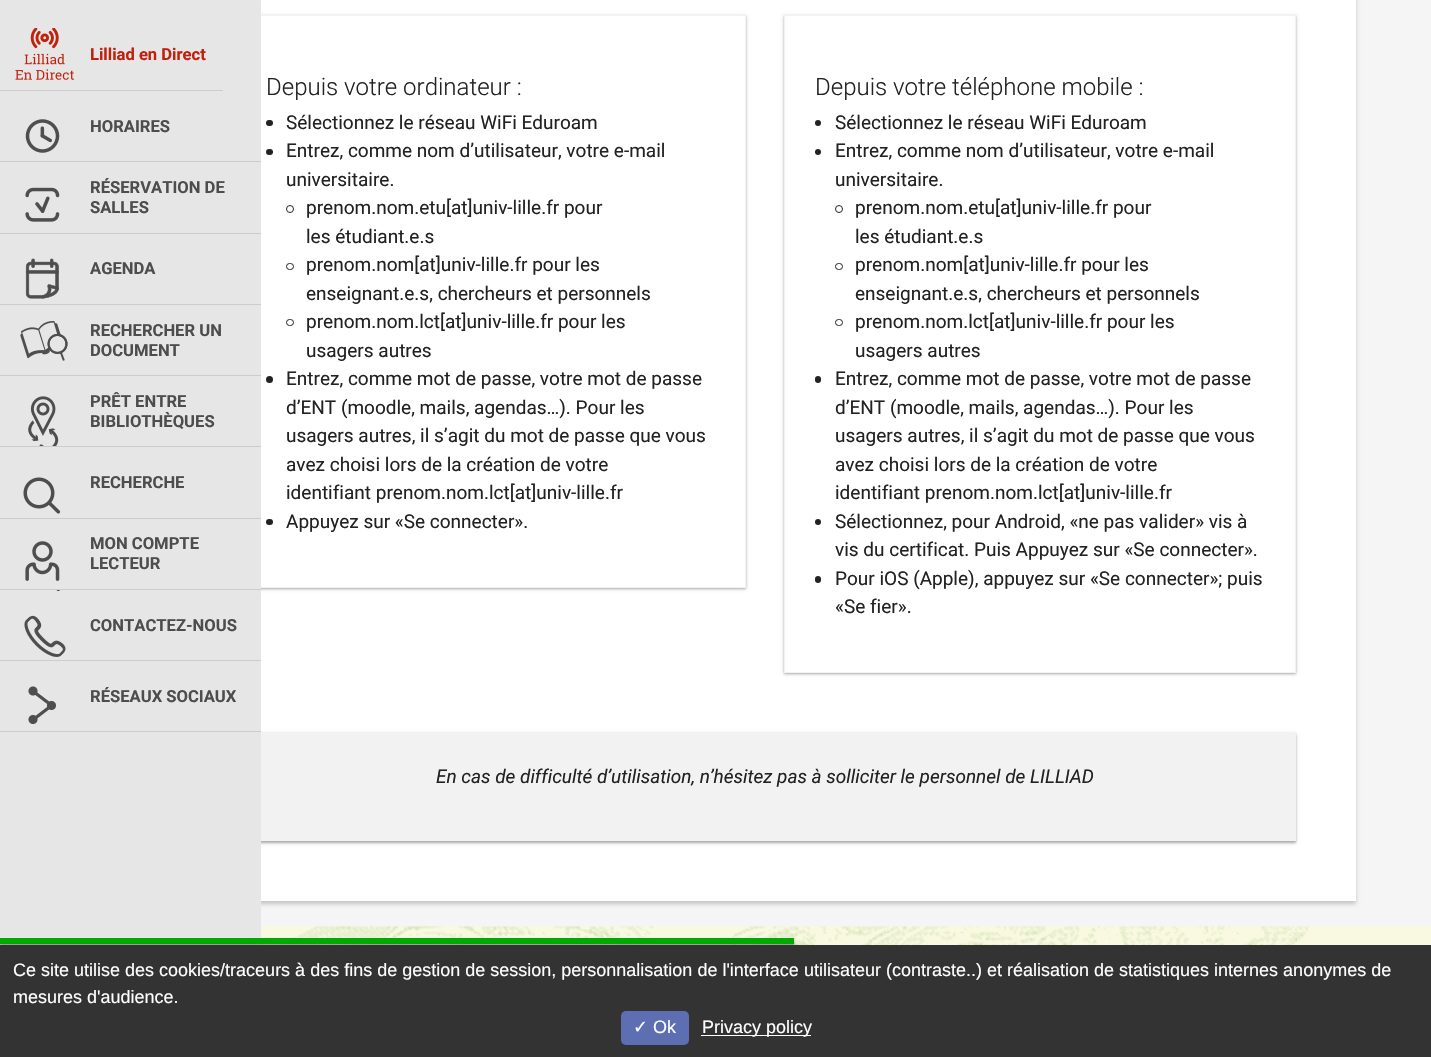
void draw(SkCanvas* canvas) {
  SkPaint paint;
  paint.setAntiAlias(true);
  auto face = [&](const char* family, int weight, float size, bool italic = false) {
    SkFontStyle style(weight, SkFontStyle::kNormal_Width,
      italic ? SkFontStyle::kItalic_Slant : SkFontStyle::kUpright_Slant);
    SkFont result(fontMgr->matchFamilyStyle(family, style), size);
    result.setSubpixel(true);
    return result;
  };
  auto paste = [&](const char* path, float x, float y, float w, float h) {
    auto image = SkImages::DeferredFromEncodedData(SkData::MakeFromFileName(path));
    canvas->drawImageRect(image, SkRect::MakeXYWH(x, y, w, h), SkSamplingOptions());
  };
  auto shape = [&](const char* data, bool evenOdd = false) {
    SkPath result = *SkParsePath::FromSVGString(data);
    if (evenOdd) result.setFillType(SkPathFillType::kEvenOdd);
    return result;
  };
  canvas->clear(0xfff5f5f5);
  paint.setColor(0x33000000);
  paint.setMaskFilter(SkMaskFilter::MakeBlur(kNormal_SkBlurStyle, 2));
  canvas->drawRect(SkRect::MakeXYWH(175, -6, 1181, 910), paint);
  paint.setMaskFilter(nullptr);
  paint.setColor(0xffffffff);
  canvas->drawRect(SkRect::MakeXYWH(261, 0, 1095, 901), paint);
  canvas->save();
  canvas->clipPath(shape("M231 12H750V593H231ZM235 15H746V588H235Z", true), true);
  paint.setColor(0x3d000000);
  paint.setMaskFilter(SkMaskFilter::MakeBlur(kNormal_SkBlurStyle, 1));
  canvas->drawRect(SkRect::MakeXYWH(235, 16, 511, 573), paint);
  paint.setMaskFilter(nullptr);
  canvas->restore();
  canvas->save();
  canvas->clipPath(shape("M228 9H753V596H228ZM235 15H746V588H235Z", true), true);
  paint.setColor(0x1f000000);
  paint.setMaskFilter(SkMaskFilter::MakeBlur(kNormal_SkBlurStyle, 2));
  canvas->drawRect(SkRect::MakeXYWH(235, 16, 511, 573), paint);
  paint.setMaskFilter(nullptr);
  canvas->restore();
  paint.setStroke(true);
  paint.setStrokeWidth(1);
  paint.setColor(0xfff2f2f2);
  canvas->drawRect(SkRect::MakeXYWH(235.5f, 15.5f, 510, 572), paint);
  paint.setStroke(false);
  paint.setColor(0x3d000000);
  paint.setMaskFilter(SkMaskFilter::MakeBlur(kNormal_SkBlurStyle, 1));
  canvas->drawRect(SkRect::MakeXYWH(235, 734, 1061, 109), paint);
  paint.setMaskFilter(nullptr);
  paint.setColor(0x1f000000);
  paint.setMaskFilter(SkMaskFilter::MakeBlur(kNormal_SkBlurStyle, 2));
  canvas->drawRect(SkRect::MakeXYWH(235, 734, 1061, 109), paint);
  paint.setMaskFilter(nullptr);
  paint.setColor(0xffe6e6e6);
  canvas->drawRect(SkRect::MakeXYWH(0, 0, 261, 945), paint);
  paste("img/1.png", 15, 28, 59, 52);
  paint.setColor(0xffcccccc);
  canvas->drawRect(SkRect::MakeXYWH(0, 90, 223, 1), paint);
  canvas->drawRect(SkRect::MakeXYWH(0, 161, 261, 1), paint);
  paste("img/2.png", 25, 119, 35, 34);
  canvas->drawRect(SkRect::MakeXYWH(0, 233, 261, 1), paint);
  paste("img/3.png", 25, 187, 35, 35);
  canvas->drawRect(SkRect::MakeXYWH(0, 304, 261, 1), paint);
  paste("img/4.png", 25, 258, 34, 41);
  canvas->drawRect(SkRect::MakeXYWH(0, 375, 261, 1), paint);
  paste("img/5.png", 20, 321, 48, 40);
  canvas->drawRect(SkRect::MakeXYWH(0, 446, 261, 1), paint);
  paste("img/6.png", 28, 396, 31, 50);
  canvas->drawRect(SkRect::MakeXYWH(0, 518, 261, 1), paint);
  paste("img/7.png", 23, 477, 38, 37);
  canvas->drawRect(SkRect::MakeXYWH(0, 589, 261, 1), paint);
  paste("img/8.png", 25, 541, 35, 40);
  canvas->drawRect(SkRect::MakeXYWH(0, 660, 261, 1), paint);
  paste("img/9.png", 24, 590, 42, 67);
  canvas->drawRect(SkRect::MakeXYWH(0, 731, 261, 1), paint);
  paste("img/10.png", 28, 686, 29, 38);
  paint.setColor(0xff222222);
  canvas->drawRoundRect(SkRect::MakeXYWH(266, 120, 7, 6), 3, 3, paint);
  canvas->drawRoundRect(SkRect::MakeXYWH(266, 149, 7, 6), 3, 3, paint);
  paint.setStroke(true);
  canvas->drawCircle(290, 209, 3.5f, paint);
  canvas->drawRoundRect(SkRect::MakeXYWH(286.5f, 263.5f, 7, 6), 3, 3, paint);
  canvas->drawRoundRect(SkRect::MakeXYWH(286.5f, 319.5f, 7, 6), 3, 3, paint);
  paint.setStroke(false);
  canvas->drawCircle(269.5f, 379.5f, 3.5f, paint);
  canvas->drawRoundRect(SkRect::MakeXYWH(266, 519, 7, 6), 3, 3, paint);
  canvas->save();
  canvas->clipPath(shape("M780 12H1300V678H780ZM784 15H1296V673H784Z", true), true);
  paint.setColor(0x3d000000);
  paint.setMaskFilter(SkMaskFilter::MakeBlur(kNormal_SkBlurStyle, 1));
  canvas->drawRect(SkRect::MakeXYWH(784, 16, 512, 658), paint);
  paint.setMaskFilter(nullptr);
  canvas->restore();
  canvas->save();
  canvas->clipPath(shape("M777 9H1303V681H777ZM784 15H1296V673H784Z", true), true);
  paint.setColor(0x1f000000);
  paint.setMaskFilter(SkMaskFilter::MakeBlur(kNormal_SkBlurStyle, 2));
  canvas->drawRect(SkRect::MakeXYWH(784, 16, 512, 658), paint);
  paint.setMaskFilter(nullptr);
  canvas->restore();
  paint.setStroke(true);
  paint.setColor(0xfff2f2f2);
  canvas->drawRect(SkRect::MakeXYWH(784.5f, 15.5f, 511, 657), paint);
  paint.setStroke(false);
  paint.setColor(0xff222222);
  canvas->drawCircle(818, 123, 3, paint);
  canvas->drawCircle(818, 152, 3, paint);
  paint.setStroke(true);
  canvas->drawCircle(839, 209, 3.5f, paint);
  canvas->drawRoundRect(SkRect::MakeXYWH(835.5f, 263.5f, 7, 6), 3, 3, paint);
  canvas->drawRoundRect(SkRect::MakeXYWH(835.5f, 319.5f, 7, 6), 3, 3, paint);
  paint.setStroke(false);
  canvas->drawRoundRect(SkRect::MakeXYWH(815, 376, 6, 7), 3, 3, paint);
  canvas->drawCircle(818, 522, 3, paint);
  canvas->drawRoundRect(SkRect::MakeXYWH(815, 576, 6, 7), 3, 3, paint);
  paint.setColor(0xfff2f2f2);
  canvas->drawRect(SkRect::MakeXYWH(261, 733, 1035, 108), paint);
  paint.setColor(0xfff9f9e2);
  canvas->drawRect(SkRect::MakeXYWH(261, 926, 1170, 19), paint);
  paste("img/11.png", 275, 926, 1034, 19);
  paint.setColor(0xff555555);
  paint.setMaskFilter(SkMaskFilter::MakeBlur(kNormal_SkBlurStyle, 1));
  canvas->drawRect(SkRect::MakeXYWH(0, 939, 794, 6), paint);
  paint.setMaskFilter(nullptr);
  paint.setColor(0xffffffff);
  paint.setMaskFilter(SkMaskFilter::MakeBlur(kNormal_SkBlurStyle, 1));
  canvas->drawRect(SkRect::MakeXYWH(0, 938, 794, 6), paint);
  paint.setMaskFilter(nullptr);
  paint.setColor(0xff00aa00);
  canvas->drawRect(SkRect::MakeXYWH(0, 938, 794, 6), paint);
  paint.setColor(0xff333333);
  canvas->drawRect(SkRect::MakeXYWH(0, 945, 1431, 112), paint);
  paint.setColor(0xff5d6eb3);
  canvas->drawRoundRect(SkRect::MakeXYWH(621, 1011, 68, 34), 5, 5, paint);
  paint.setColor(0xffffffff);
  canvas->drawRect(SkRect::MakeXYWH(701, 1035, 110, 1), paint);
  auto f0 = face("Roboto", 700, 16.6f);
  paint.setColor(0xffc1210c);
  canvas->drawString("Lilliad en Direct", 90, 60, f0, paint);
  paint.setColor(0xff4d4d4d);
  {
    const struct { const char* s; float x, y; } items[] = {
      {"HORAIRES", 90, 132},
      {"RÉSERVATION DE", 90, 193},
      {"SALLES", 90, 213},
      {"AGENDA", 90, 274},
      {"RECHERCHER UN", 90, 336},
      {"DOCUMENT", 90, 356},
      {"PRÊT ENTRE", 90, 407},
      {"BIBLIOTHÈQUES", 90, 427},
      {"RECHERCHE", 90, 488},
      {"MON COMPTE", 90, 549},
      {"LECTEUR", 90, 569},
      {"CONTACTEZ-NOUS", 90, 631},
      {"RÉSEAUX SOCIAUX", 90, 702},
    };
    for (auto [s, x, y] : items) {
      canvas->drawString(s, x, y, f0, paint);
    }
  }
  auto f1 = face("Roboto", 300, 24);
  paint.setColor(0xff222222);
  canvas->drawString("Depuis votre ordinateur :", 266, 95, f1, paint);
  auto f2 = face("Roboto", 400, 19);
  {
    const struct { const char* s; float x, y; } items[] = {
      {"Sélectionnez le réseau WiFi Eduroam", 286, 129},
      {"Entrez, comme nom d’utilisateur, votre e-mail", 286, 157},
      {"universitaire.", 286, 186},
      {"prenom.nom.etu[at]univ-lille.fr pour", 306, 214},
      {"les étudiant.e.s", 306, 243},
      {"prenom.nom[at]univ-lille.fr pour les", 306, 271},
      {"enseignant.e.s, chercheurs et personnels", 306, 300},
      {"prenom.nom.lct[at]univ-lille.fr pour les", 306, 328},
      {"usagers autres", 306, 357},
      {"Entrez, comme mot de passe, votre mot de passe", 286, 385},
      {"d’ENT (moodle, mails, agendas…). Pour les", 286, 414},
      {"usagers autres, il s’agit du mot de passe que vous", 286, 442},
      {"avez choisi lors de la création de votre", 286, 471},
      {"identifiant prenom.nom.lct[at]univ-lille.fr", 286, 499},
      {"Appuyez sur «Se connecter».", 286, 528},
    };
    for (auto [s, x, y] : items) {
      canvas->drawString(s, x, y, f2, paint);
    }
  }
  canvas->drawString("Depuis votre téléphone mobile :", 815, 95, f1, paint);
  {
    const struct { const char* s; float x, y; } items[] = {
      {"Sélectionnez le réseau WiFi Eduroam", 835, 129},
      {"Entrez, comme nom d’utilisateur, votre e-mail", 835, 157},
      {"universitaire.", 835, 186},
      {"prenom.nom.etu[at]univ-lille.fr pour", 855, 214},
      {"les étudiant.e.s", 855, 243},
      {"prenom.nom[at]univ-lille.fr pour les", 855, 271},
      {"enseignant.e.s, chercheurs et personnels", 855, 300},
      {"prenom.nom.lct[at]univ-lille.fr pour les", 855, 328},
      {"usagers autres", 855, 357},
      {"Entrez, comme mot de passe, votre mot de passe", 835, 385},
      {"d’ENT (moodle, mails, agendas…). Pour les", 835, 414},
      {"usagers autres, il s’agit du mot de passe que vous", 835, 442},
      {"avez choisi lors de la création de votre", 835, 471},
      {"identifiant prenom.nom.lct[at]univ-lille.fr", 835, 499},
      {"Sélectionnez, pour Android, «ne pas valider» vis à", 835, 528},
      {"vis du certificat. Puis Appuyez sur «Se connecter».", 835, 556},
      {"Pour iOS (Apple), appuyez sur «Se connecter»; puis", 835, 585},
      {"«Se fier».", 835, 613},
    };
    for (auto [s, x, y] : items) {
      canvas->drawString(s, x, y, f2, paint);
    }
  }
  auto f3 = face("Roboto", 400, 19, true);
  canvas->drawString("En cas de difficulté d’utilisation, n’hésitez pas à solliciter le personnel de LILLIAD", 436, 783, f3, paint);
  auto f4 = face("Liberation Sans", 400, 18);
  paint.setColor(0xffffffff);
  canvas->drawString("Ce site utilise des cookies/traceurs à des fins de gestion de session, personnalisation de l'interface utilisateur (contraste..) et réalisation de statistiques internes anonymes de", 13, 976, f4, paint);
  canvas->drawString("mesures d'audience.", 13, 1003, f4, paint);
  auto f5 = face("DejaVu Sans", 400, 18);
  canvas->drawString("✓", 633, 1033, f5, paint);
  canvas->drawString("Ok", 653, 1033, f4, paint);
  canvas->drawString("Privacy policy", 702, 1033, f4, paint);
}
